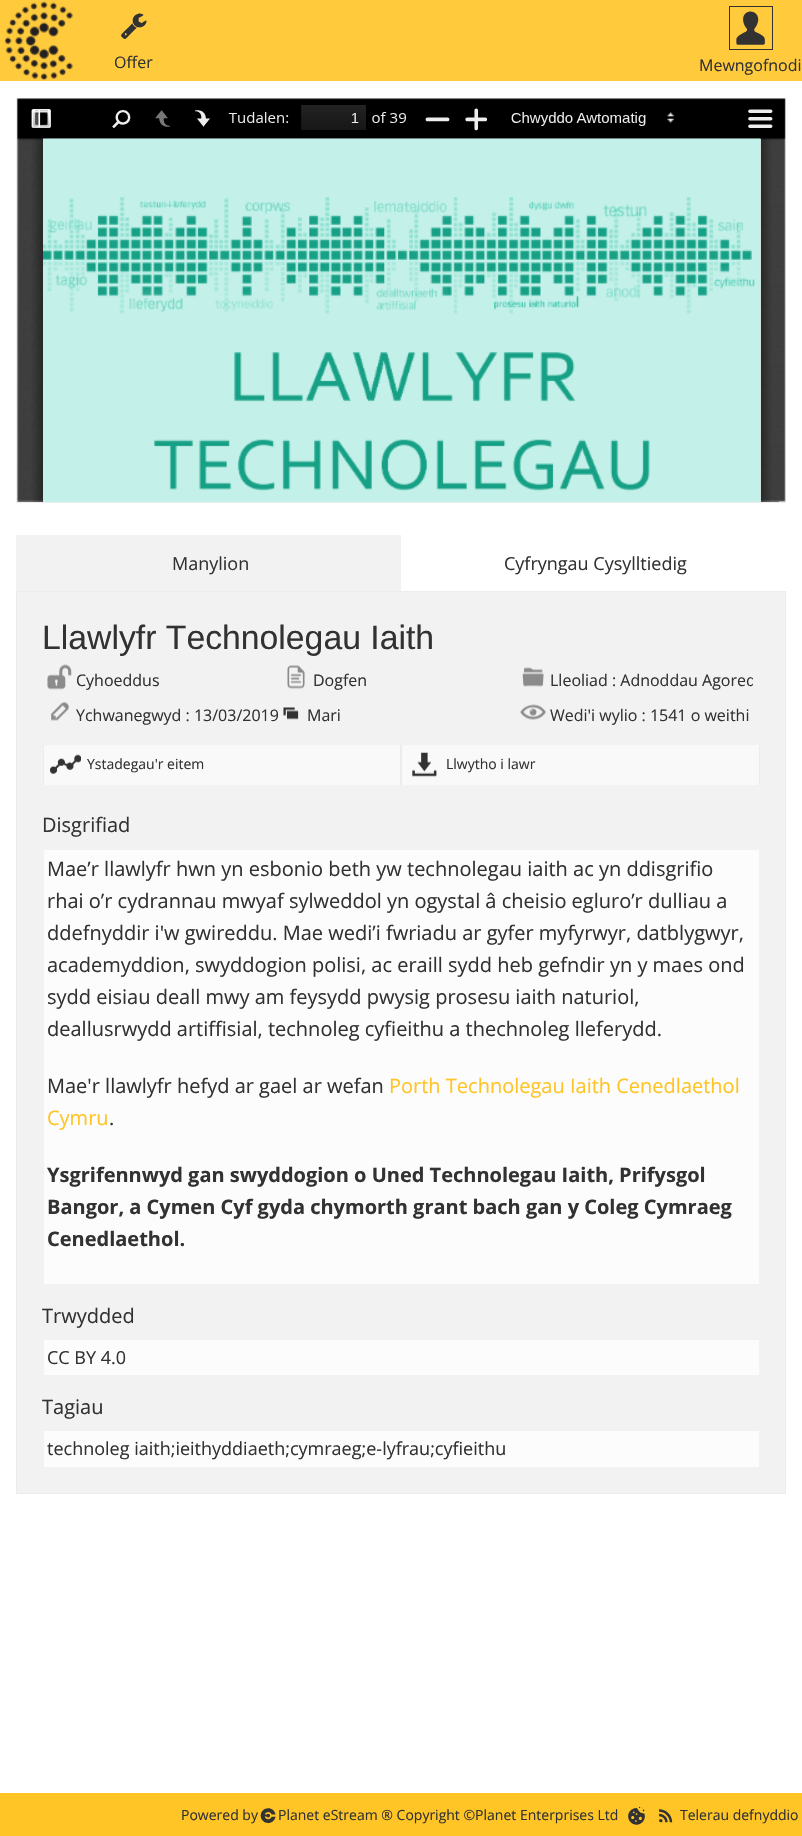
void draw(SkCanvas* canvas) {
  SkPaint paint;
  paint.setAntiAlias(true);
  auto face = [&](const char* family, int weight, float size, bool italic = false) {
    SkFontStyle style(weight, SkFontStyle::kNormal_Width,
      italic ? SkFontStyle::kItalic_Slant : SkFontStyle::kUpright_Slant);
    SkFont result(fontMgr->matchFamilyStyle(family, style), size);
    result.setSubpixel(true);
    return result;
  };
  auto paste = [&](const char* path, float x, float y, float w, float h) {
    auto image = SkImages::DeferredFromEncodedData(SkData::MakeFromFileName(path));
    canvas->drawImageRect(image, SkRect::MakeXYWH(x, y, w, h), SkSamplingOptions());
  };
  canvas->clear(0xffffffff);
  paint.setColor(0xffffca3b);
  canvas->drawRect(SkRect::MakeXYWH(0, 0, 802, 81), paint);
  paste("img/1.png", 4, 1, 69, 80);
  paste("img/2.png", 121, 13, 26, 26);
  paint.setStroke(true);
  paint.setStrokeWidth(1);
  paint.setColor(0xff323232);
  canvas->drawRect(SkRect::MakeXYWH(729.5f, 6.5f, 43, 43), paint);
  paste("img/3.png", 736, 11, 29, 34);
  paste("img/4.png", 16, 98, 770, 405);
  paint.setStroke(false);
  paint.setColor(0xfff2f2f2);
  canvas->drawRect(SkRect::MakeXYWH(16, 535, 385, 56), paint);
  canvas->drawRect(SkRect::MakeXYWH(16.5f, 591.5f, 769, 902), paint);
  paint.setStroke(true);
  paint.setColor(0xffececec);
  canvas->drawRect(SkRect::MakeXYWH(16.5f, 591.5f, 769, 902), paint);
  paste("img/5.png", 47, 664, 25, 26);
  paste("img/6.png", 287, 665, 18, 24);
  paste("img/7.png", 522, 667, 22, 20);
  paste("img/8.png", 51, 702, 18, 19);
  paste("img/9.png", 283, 707, 16, 13);
  paste("img/10.png", 520, 704, 26, 16);
  paint.setStroke(false);
  {
    const struct { float x, y, w, h; SkColor color; } items[] = {
      {44, 745, 356, 40, 0xfff9f9f9},
      {400, 745, 2, 40, 0xffececec},
      {43, 745, 1, 40, 0xffececec},
    };
    for (auto [x, y, w, h, color] : items) {
      paint.setColor(color);
      canvas->drawRect(SkRect::MakeXYWH(x, y, w, h), paint);
    }
  }
  paste("img/11.png", 50, 754, 31, 20);
  paint.setColor(0xfff9f9f9);
  canvas->drawRect(SkRect::MakeXYWH(402, 745, 357, 40), paint);
  paint.setColor(0xffececec);
  canvas->drawRect(SkRect::MakeXYWH(759, 745, 1, 40), paint);
  paste("img/12.png", 412, 752, 25, 25);
  {
    const struct { float x, y, w, h; SkColor color; } items[] = {
      {44, 850, 715, 434, 0xfffcfcfc},
      {44, 1340, 715, 35, 0xfffcfcfc},
      {44, 1431, 715, 36, 0xfffcfcfc},
      {0, 1793, 802, 43, 0xffffc425},
    };
    for (auto [x, y, w, h, color] : items) {
      paint.setColor(color);
      canvas->drawRect(SkRect::MakeXYWH(x, y, w, h), paint);
    }
  }
  paste("img/13.png", 260, 1808, 16, 15);
  paste("img/14.png", 628, 1806, 17, 19);
  paste("img/15.png", 659, 1809, 14, 14);
  auto f0 = face("Open Sans", 400, 16);
  paint.setColor(0xff323232);
  canvas->drawString("Offer", 114, 68, f0, paint);
  canvas->drawString("Mewngofnodi", 699, 71, f0, paint);
  auto f1 = face("Open Sans", 400, 18);
  canvas->drawString("Manylion", 172, 570, f1, paint);
  canvas->drawString("Cyfryngau Cysylltiedig", 504, 570, f1, paint);
  auto f2 = face("Liberation Sans", 400, 33.75f);
  canvas->drawString("Llawlyfr Technolegau Iaith", 42, 649, f2, paint);
  canvas->drawString("Cyhoeddus", 76, 686, f0, paint);
  canvas->drawString("Dogfen", 313, 686, f0, paint);
  canvas->save();
  canvas->clipRect(SkRect::MakeXYWH(516, 663, 237, 35));
  canvas->drawString("Lleoliad : Adnoddau Agored", 550, 686, f0, paint);
  canvas->restore();
  {
    const struct { const char* s; float x, y; } items[] = {
      {"Ychwanegwyd : 13/03/2019", 76, 721},
      {"Mari", 307, 721},
      {"Wedi'i wylio : 1541 o weithi", 550, 721},
    };
    for (auto [s, x, y] : items) {
      canvas->drawString(s, x, y, f0, paint);
    }
  }
  auto f3 = face("Open Sans", 400, 14);
  canvas->drawString("Ystadegau'r eitem", 87, 769, f3, paint);
  canvas->drawString("Llwytho i lawr", 446, 769, f3, paint);
  auto f4 = face("Open Sans", 400, 20);
  {
    const struct { const char* s; float x, y; } items[] = {
      {"Disgrifiad", 42, 832},
      {"Mae’r llawlyfr hwn yn esbonio beth yw technolegau iaith ac yn ddisgrifio", 47, 876},
      {"rhai o’r cydrannau mwyaf sylweddol yn ogystal â cheisio egluro’r dulliau a", 47, 908},
      {"ddefnyddir i'w gwireddu. Mae wedi’i fwriadu ar gyfer myfyrwyr, datblygwyr,", 47, 940},
      {"academyddion, swyddogion polisi, ac eraill sydd heb gefndir yn y maes ond", 47, 972},
      {"sydd eisiau deall mwy am feysydd pwysig prosesu iaith naturiol,", 47, 1004},
      {"deallusrwydd artiffisial, technoleg cyfieithu a thechnoleg lleferydd.", 47, 1036},
      {"Mae'r llawlyfr hefyd ar gael ar wefan", 47, 1093},
    };
    for (auto [s, x, y] : items) {
      canvas->drawString(s, x, y, f4, paint);
    }
  }
  paint.setColor(0xffffc425);
  canvas->drawString("Porth Technolegau Iaith Cenedlaethol", 389, 1093, f4, paint);
  canvas->drawString("Cymru", 47, 1125, f4, paint);
  paint.setColor(0xff323232);
  canvas->drawString(".", 109, 1125, f4, paint);
  auto f5 = face("Open Sans", 700, 20);
  {
    const struct { const char* s; float x, y; } items[] = {
      {"Ysgrifennwyd gan swyddogion o Uned Technolegau Iaith, Prifysgol", 47, 1182},
      {"Bangor, a Cymen Cyf gyda chymorth grant bach gan y Coleg Cymraeg", 47, 1214},
      {"Cenedlaethol.", 47, 1246},
    };
    for (auto [s, x, y] : items) {
      canvas->drawString(s, x, y, f5, paint);
    }
  }
  canvas->drawString("Trwydded", 42, 1323, f4, paint);
  canvas->drawString("CC BY 4.0", 47, 1364, f1, paint);
  canvas->drawString("Tagiau", 42, 1414, f4, paint);
  canvas->drawString("technoleg iaith;ieithyddiaeth;cymraeg;e-lyfrau;cyfieithu", 47, 1455, f1, paint);
  {
    const struct { const char* s; float x, y; } items[] = {
      {"Powered by", 181, 1820},
      {"Planet eStream ® Copyright ©Planet Enterprises Ltd", 278, 1820},
      {"Telerau defnyddio", 680, 1820},
    };
    for (auto [s, x, y] : items) {
      canvas->drawString(s, x, y, f3, paint);
    }
  }
}
